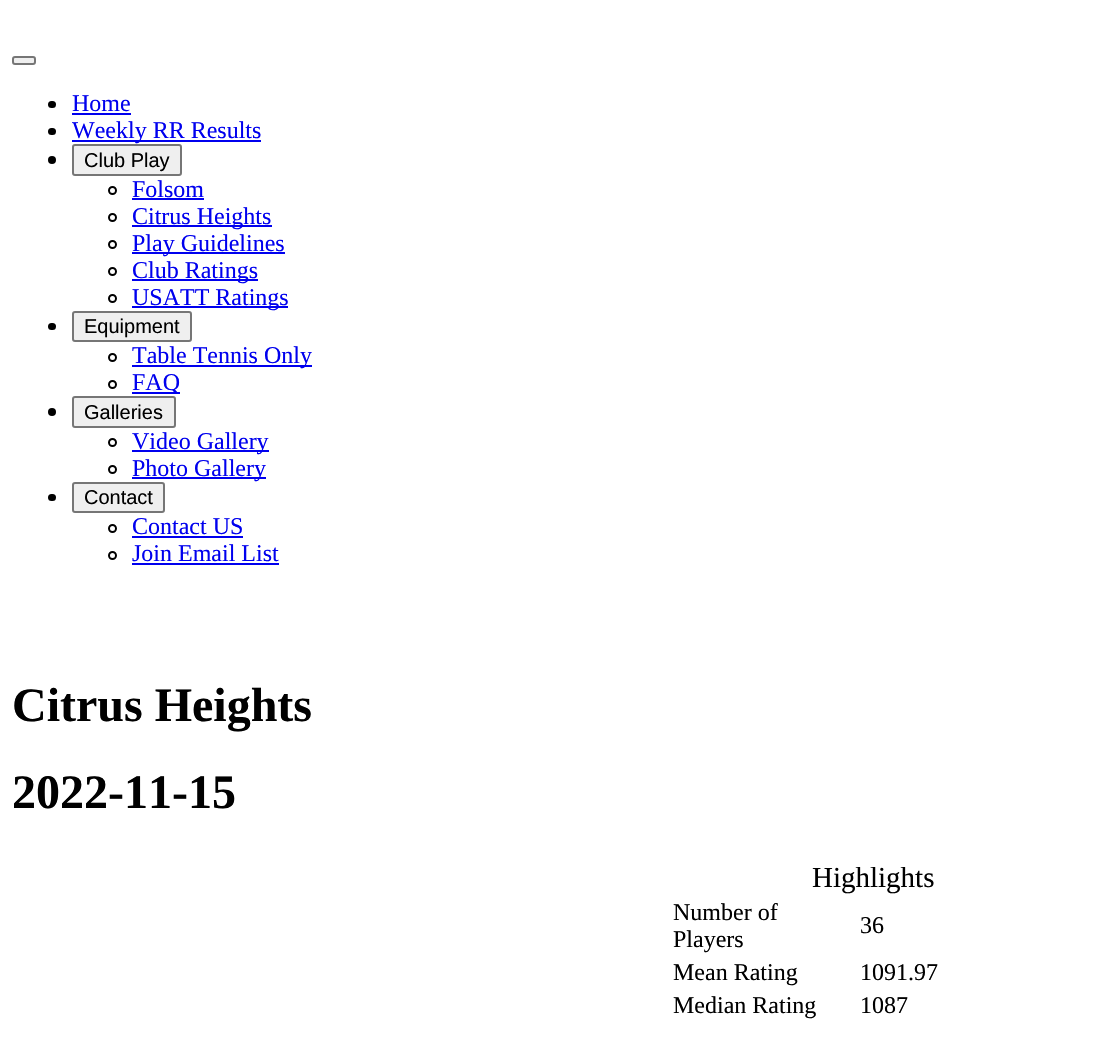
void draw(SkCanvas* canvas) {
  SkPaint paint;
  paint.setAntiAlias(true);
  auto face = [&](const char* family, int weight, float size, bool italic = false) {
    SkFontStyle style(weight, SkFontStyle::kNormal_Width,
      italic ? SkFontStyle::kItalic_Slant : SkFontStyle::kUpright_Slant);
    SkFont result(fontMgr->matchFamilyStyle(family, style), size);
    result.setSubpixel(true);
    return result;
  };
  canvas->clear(0xffffffff);
  paint.setColor(0xffefefef);
  canvas->drawRoundRect(SkRect::MakeXYWH(13, 57, 22, 7), 2, 2, paint);
  paint.setStroke(true);
  paint.setStrokeWidth(2);
  paint.setColor(0xff767676);
  canvas->drawRoundRect(SkRect::MakeXYWH(13, 57, 22, 7), 2, 2, paint);
  paint.setStroke(false);
  paint.setColor(0xff000000);
  canvas->drawRoundRect(SkRect::MakeXYWH(48, 101, 8, 7), 3.5f, 3.5f, paint);
  paint.setColor(0xff0000ee);
  canvas->drawRect(SkRect::MakeXYWH(72, 113, 59, 2), paint);
  paint.setColor(0xff000000);
  canvas->drawRoundRect(SkRect::MakeXYWH(48, 128, 8, 7), 3.5f, 3.5f, paint);
  paint.setColor(0xff0000ee);
  canvas->drawRect(SkRect::MakeXYWH(72, 140, 189, 2), paint);
  paint.setColor(0xff000000);
  canvas->drawCircle(52, 160, 4, paint);
  paint.setColor(0xffefefef);
  canvas->drawRoundRect(SkRect::MakeXYWH(73, 145, 108, 30), 2, 2, paint);
  paint.setStroke(true);
  paint.setColor(0xff767676);
  canvas->drawRoundRect(SkRect::MakeXYWH(73, 145, 108, 30), 2, 2, paint);
  paint.setColor(0xff000000);
  canvas->drawCircle(112.5f, 190.5f, 3.5f, paint);
  paint.setStroke(false);
  paint.setColor(0xff0000ee);
  canvas->drawRect(SkRect::MakeXYWH(132, 198, 72, 2), paint);
  paint.setStroke(true);
  paint.setColor(0xff000000);
  canvas->drawCircle(112.5f, 217.5f, 3.5f, paint);
  paint.setStroke(false);
  paint.setColor(0xff0000ee);
  canvas->drawRect(SkRect::MakeXYWH(132, 225, 140, 2), paint);
  paint.setStroke(true);
  paint.setColor(0xff000000);
  canvas->drawCircle(112.5f, 244.5f, 3.5f, paint);
  paint.setStroke(false);
  paint.setColor(0xff0000ee);
  canvas->drawRect(SkRect::MakeXYWH(132, 252, 153, 2), paint);
  paint.setStroke(true);
  paint.setColor(0xff000000);
  canvas->drawCircle(112.5f, 271.5f, 3.5f, paint);
  paint.setStroke(false);
  paint.setColor(0xff0000ee);
  canvas->drawRect(SkRect::MakeXYWH(132, 279, 126, 2), paint);
  paint.setStroke(true);
  paint.setColor(0xff000000);
  canvas->drawCircle(112.5f, 298.5f, 3.5f, paint);
  paint.setStroke(false);
  paint.setColor(0xff0000ee);
  canvas->drawRect(SkRect::MakeXYWH(132, 306, 156, 2), paint);
  paint.setColor(0xff000000);
  canvas->drawRoundRect(SkRect::MakeXYWH(48, 323, 8, 7), 3.5f, 3.5f, paint);
  paint.setColor(0xffefefef);
  canvas->drawRoundRect(SkRect::MakeXYWH(73, 312, 118, 29), 2, 2, paint);
  paint.setStroke(true);
  paint.setColor(0xff767676);
  canvas->drawRoundRect(SkRect::MakeXYWH(73, 312, 118, 29), 2, 2, paint);
  paint.setColor(0xff000000);
  canvas->drawCircle(112.5f, 357.5f, 3.5f, paint);
  paint.setStroke(false);
  paint.setColor(0xff0000ee);
  canvas->drawRect(SkRect::MakeXYWH(132, 365, 180, 2), paint);
  paint.setStroke(true);
  paint.setColor(0xff000000);
  canvas->drawCircle(112.5f, 384.5f, 3.5f, paint);
  paint.setStroke(false);
  paint.setColor(0xff0000ee);
  canvas->drawRect(SkRect::MakeXYWH(132, 392, 48, 2), paint);
  paint.setColor(0xff000000);
  canvas->drawCircle(52, 412, 4, paint);
  paint.setColor(0xffefefef);
  canvas->drawRoundRect(SkRect::MakeXYWH(73, 397, 102, 30), 2, 2, paint);
  paint.setStroke(true);
  paint.setColor(0xff767676);
  canvas->drawRoundRect(SkRect::MakeXYWH(73, 397, 102, 30), 2, 2, paint);
  paint.setColor(0xff000000);
  canvas->drawCircle(112.5f, 442.5f, 3.5f, paint);
  paint.setStroke(false);
  paint.setColor(0xff0000ee);
  canvas->drawRect(SkRect::MakeXYWH(132, 450, 137, 2), paint);
  paint.setStroke(true);
  paint.setColor(0xff000000);
  canvas->drawCircle(112.5f, 469.5f, 3.5f, paint);
  paint.setStroke(false);
  paint.setColor(0xff0000ee);
  canvas->drawRect(SkRect::MakeXYWH(132, 477, 134, 2), paint);
  paint.setColor(0xff000000);
  canvas->drawRoundRect(SkRect::MakeXYWH(48, 494, 8, 7), 3.5f, 3.5f, paint);
  paint.setColor(0xffefefef);
  canvas->drawRoundRect(SkRect::MakeXYWH(73, 483, 91, 29), 2, 2, paint);
  paint.setStroke(true);
  paint.setColor(0xff767676);
  canvas->drawRoundRect(SkRect::MakeXYWH(73, 483, 91, 29), 2, 2, paint);
  paint.setColor(0xff000000);
  canvas->drawCircle(112.5f, 528.5f, 3.5f, paint);
  paint.setStroke(false);
  paint.setColor(0xff0000ee);
  canvas->drawRect(SkRect::MakeXYWH(132, 536, 111, 2), paint);
  paint.setStroke(true);
  paint.setColor(0xff000000);
  canvas->drawCircle(112.5f, 555.5f, 3.5f, paint);
  paint.setStroke(false);
  paint.setColor(0xff0000ee);
  canvas->drawRect(SkRect::MakeXYWH(132, 563, 147, 2), paint);
  auto f0 = face("Liberation Serif", 400, 24);
  canvas->drawString("Home", 72, 111, f0, paint);
  canvas->drawString("Weekly RR Results", 72, 138, f0, paint);
  auto f1 = face("Liberation Sans", 400, 20);
  paint.setColor(0xff000000);
  canvas->drawString("Club Play", 84, 167, f1, paint);
  paint.setColor(0xff0000ee);
  {
    const struct { const char* s; float x, y; } items[] = {
      {"Folsom", 132, 197},
      {"Citrus Heights", 132, 224},
      {"Play Guidelines", 132, 251},
      {"Club Ratings", 132, 278},
      {"USATT Ratings", 132, 305},
    };
    for (auto [s, x, y] : items) {
      canvas->drawString(s, x, y, f0, paint);
    }
  }
  paint.setColor(0xff000000);
  canvas->drawString("Equipment", 84, 333, f1, paint);
  paint.setColor(0xff0000ee);
  canvas->drawString("Table Tennis Only", 132, 363, f0, paint);
  canvas->drawString("FAQ", 132, 390, f0, paint);
  paint.setColor(0xff000000);
  canvas->drawString("Galleries", 84, 419, f1, paint);
  paint.setColor(0xff0000ee);
  canvas->drawString("Video Gallery", 132, 449, f0, paint);
  canvas->drawString("Photo Gallery", 132, 476, f0, paint);
  paint.setColor(0xff000000);
  canvas->drawString("Contact", 84, 504, f1, paint);
  paint.setColor(0xff0000ee);
  canvas->drawString("Contact US", 132, 534, f0, paint);
  canvas->drawString("Join Email List", 132, 561, f0, paint);
  auto f2 = face("Liberation Serif", 700, 48);
  paint.setColor(0xff000000);
  canvas->drawString("Citrus Heights", 12, 721, f2, paint);
  canvas->drawString("2022-11-15", 12, 808, f2, paint);
  auto f3 = face("Liberation Serif", 400, 29);
  canvas->drawString("Highlights", 812, 887, f3, paint);
  {
    const struct { const char* s; float x, y; } items[] = {
      {"Number of", 673, 920},
      {"Players", 673, 947},
      {"36", 860, 933},
      {"Mean Rating", 673, 980},
      {"1091.97", 860, 980},
      {"Median Rating", 673, 1013},
      {"1087", 860, 1013},
    };
    for (auto [s, x, y] : items) {
      canvas->drawString(s, x, y, f0, paint);
    }
  }
}
